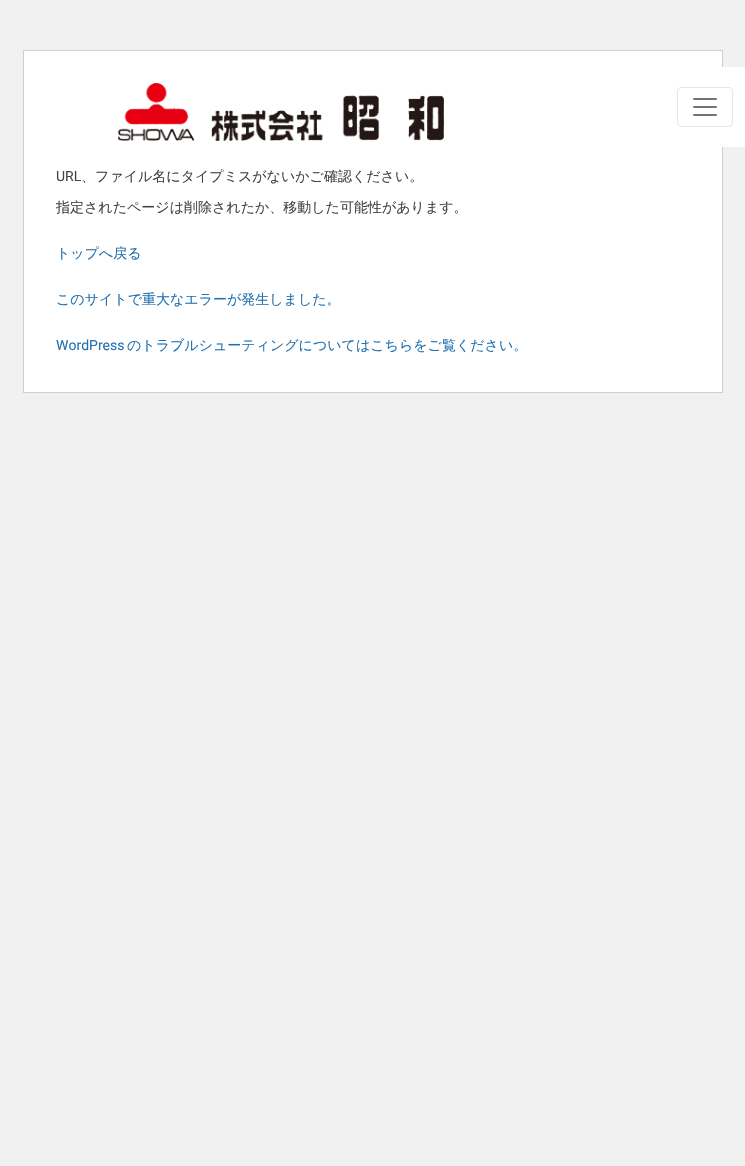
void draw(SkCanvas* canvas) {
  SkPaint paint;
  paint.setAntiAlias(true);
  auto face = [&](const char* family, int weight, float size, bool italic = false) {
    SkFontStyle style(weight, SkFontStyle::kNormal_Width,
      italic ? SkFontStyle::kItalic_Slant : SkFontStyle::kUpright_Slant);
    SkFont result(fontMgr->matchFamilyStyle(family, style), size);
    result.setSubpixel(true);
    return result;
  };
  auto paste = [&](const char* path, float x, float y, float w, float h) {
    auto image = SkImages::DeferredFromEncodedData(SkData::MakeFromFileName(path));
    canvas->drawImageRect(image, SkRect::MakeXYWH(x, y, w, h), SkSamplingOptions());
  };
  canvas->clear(0xfff1f1f1);
  paint.setColor(0xffffffff);
  canvas->drawRect(SkRect::MakeXYWH(23.5f, 50.5f, 699, 342), paint);
  paint.setStroke(true);
  paint.setStrokeWidth(1);
  paint.setColor(0xffccd0d4);
  canvas->drawRect(SkRect::MakeXYWH(23.5f, 50.5f, 699, 342), paint);
  paint.setStroke(false);
  paint.setColor(0xffffffff);
  canvas->drawRect(SkRect::MakeXYWH(722, 67, 23, 80), paint);
  paste("img/1.png", 118, 83, 326, 58);
  paint.setStroke(true);
  paint.setColor(0xffe6e6e6);
  canvas->drawRoundRect(SkRect::MakeXYWH(677.5f, 87.5f, 55, 39), 3.5f, 3.5f, paint);
  paste("img/2.png", 693, 98, 24, 18);
  auto f0 = face("Roboto", 400, 14);
  paint.setStroke(false);
  paint.setColor(0xff444444);
  canvas->drawString("URL", 56, 181, f0, paint);
  auto f1 = face("WenQuanYi Zen Hei", 500, 14);
  canvas->drawString("、ファイル名にタイプミスがないかご確認ください。", 81, 181, f1, paint);
  canvas->drawString("指定されたページは削除されたか、移動した可能性があります。", 56, 212, f1, paint);
  paint.setColor(0xff2271b1);
  canvas->drawString("トップへ戻る", 56, 258, f1, paint);
  canvas->drawString("このサイトで重大なエラーが発生しました。", 56, 304, f1, paint);
  canvas->drawString("WordPress", 56, 350, f0, paint);
  canvas->drawString("のトラブルシューティングについてはこちらをご覧ください。", 127, 350, f1, paint);
}
